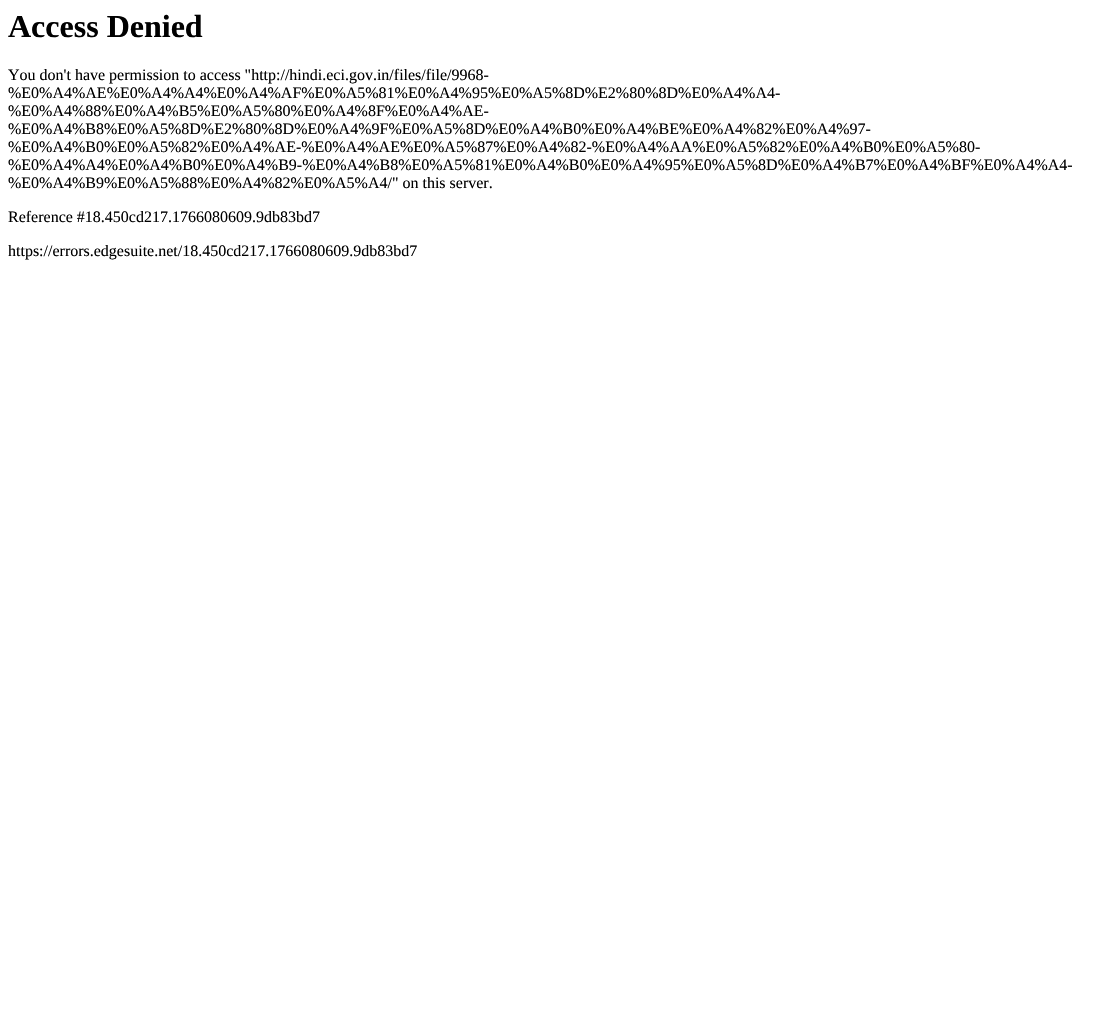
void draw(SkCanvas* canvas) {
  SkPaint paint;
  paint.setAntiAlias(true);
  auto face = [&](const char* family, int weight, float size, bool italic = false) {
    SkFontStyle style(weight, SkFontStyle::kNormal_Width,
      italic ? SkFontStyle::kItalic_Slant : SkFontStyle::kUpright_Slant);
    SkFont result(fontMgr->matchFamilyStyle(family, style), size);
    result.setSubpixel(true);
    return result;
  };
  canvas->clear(0xffffffff);
  auto f0 = face("Liberation Serif", 700, 32);
  paint.setColor(0xff000000);
  canvas->drawString("Access Denied", 8, 37, f0, paint);
  auto f1 = face("Liberation Serif", 400, 16);
  {
    const struct { const char* s; float x, y; } items[] = {
      {"You don't have permission to access \"http://hindi.eci.gov.in/files/file/9968-", 8, 80},
      {"%E0%A4%AE%E0%A4%A4%E0%A4%AF%E0%A5%81%E0%A4%95%E0%A5%8D%E2%80%8D%E0%A4%A4-", 8, 98},
      {"%E0%A4%88%E0%A4%B5%E0%A5%80%E0%A4%8F%E0%A4%AE-", 8, 116},
      {"%E0%A4%B8%E0%A5%8D%E2%80%8D%E0%A4%9F%E0%A5%8D%E0%A4%B0%E0%A4%BE%E0%A4%82%E0%A4%97-", 8, 134},
      {"%E0%A4%B0%E0%A5%82%E0%A4%AE-%E0%A4%AE%E0%A5%87%E0%A4%82-%E0%A4%AA%E0%A5%82%E0%A4%B0%E0%A5%80-", 8, 152},
      {"%E0%A4%A4%E0%A4%B0%E0%A4%B9-%E0%A4%B8%E0%A5%81%E0%A4%B0%E0%A4%95%E0%A5%8D%E0%A4%B7%E0%A4%BF%E0%A4%A4-", 8, 170},
      {"%E0%A4%B9%E0%A5%88%E0%A4%82%E0%A5%A4/\" on this server.", 8, 188},
      {"Reference #18.450cd217.1766080609.9db83bd7", 8, 222},
      {"https://errors.edgesuite.net/18.450cd217.1766080609.9db83bd7", 8, 256},
    };
    for (auto [s, x, y] : items) {
      canvas->drawString(s, x, y, f1, paint);
    }
  }
}
